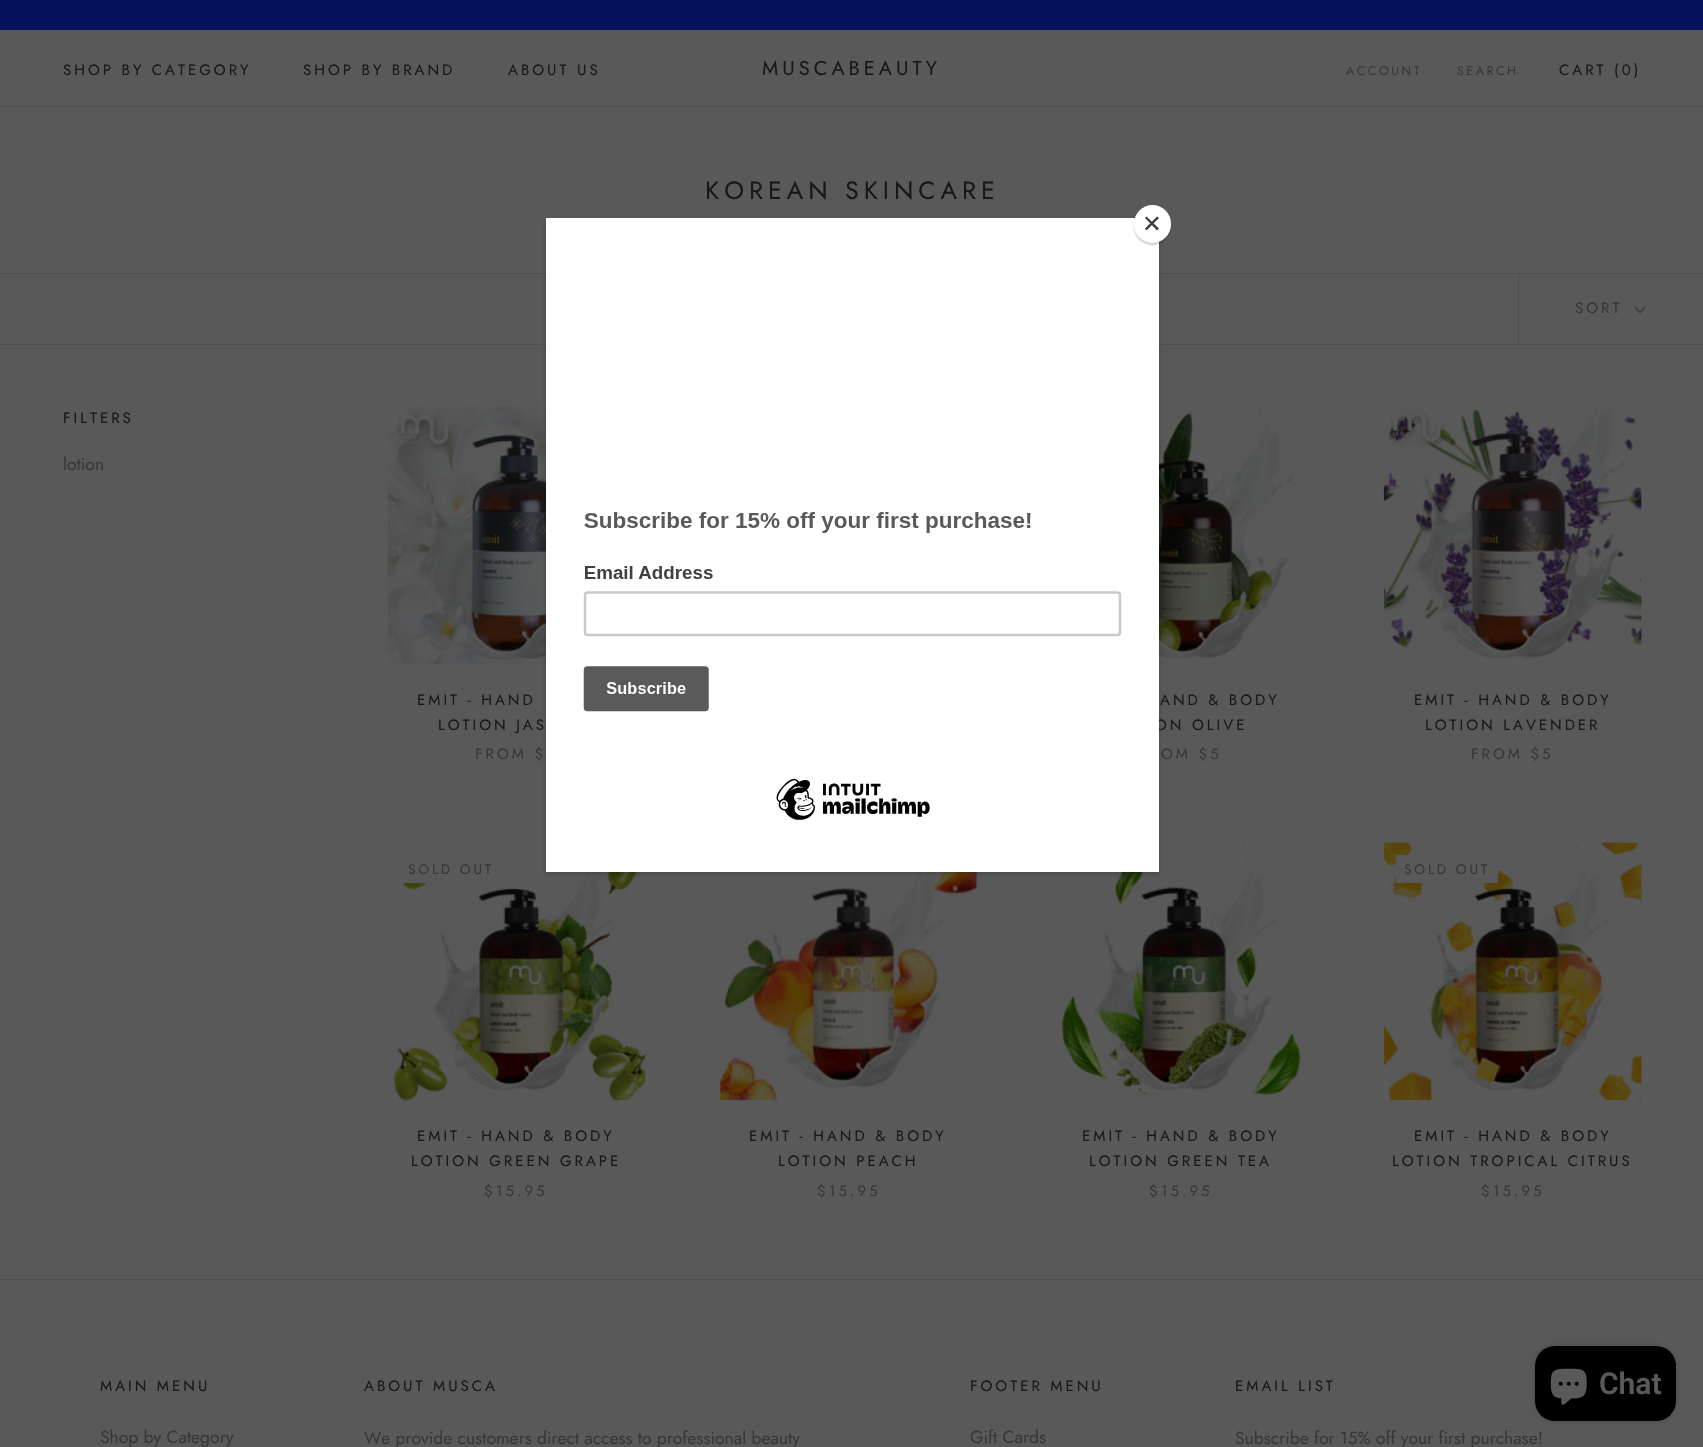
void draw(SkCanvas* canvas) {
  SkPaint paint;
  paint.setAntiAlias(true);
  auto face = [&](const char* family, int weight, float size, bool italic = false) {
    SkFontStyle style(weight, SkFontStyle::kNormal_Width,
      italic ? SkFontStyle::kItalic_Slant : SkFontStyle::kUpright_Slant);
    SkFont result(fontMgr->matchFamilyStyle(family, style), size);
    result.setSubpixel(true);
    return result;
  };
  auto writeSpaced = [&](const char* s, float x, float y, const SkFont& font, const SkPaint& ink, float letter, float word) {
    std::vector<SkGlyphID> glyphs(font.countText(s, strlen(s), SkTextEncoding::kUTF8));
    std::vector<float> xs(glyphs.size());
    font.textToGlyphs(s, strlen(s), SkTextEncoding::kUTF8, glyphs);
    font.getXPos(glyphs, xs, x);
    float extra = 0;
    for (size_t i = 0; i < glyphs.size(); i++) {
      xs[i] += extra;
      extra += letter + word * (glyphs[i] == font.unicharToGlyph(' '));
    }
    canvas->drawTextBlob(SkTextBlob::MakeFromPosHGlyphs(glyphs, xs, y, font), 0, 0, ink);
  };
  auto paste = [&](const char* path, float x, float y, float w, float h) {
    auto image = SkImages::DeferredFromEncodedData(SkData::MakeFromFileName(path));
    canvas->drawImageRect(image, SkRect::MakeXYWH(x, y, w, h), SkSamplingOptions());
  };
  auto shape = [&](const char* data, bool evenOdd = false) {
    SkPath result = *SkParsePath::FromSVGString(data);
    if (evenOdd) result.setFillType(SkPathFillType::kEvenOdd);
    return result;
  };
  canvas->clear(0xff595959);
  paint.setColor(0xff051159);
  canvas->drawRect(SkRect::MakeXYWH(0, 0, 1703, 30), paint);
  paint.setColor(0xff4f4f4f);
  canvas->drawRect(SkRect::MakeXYWH(0, 106, 1703, 1), paint);
  canvas->drawPath(shape("M-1 273V343H0V274H1703V273Z"), paint);
  canvas->drawPath(shape("M1 344V345H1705V275H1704V344Z"), paint);
  canvas->drawRect(SkRect::MakeXYWH(1518, 274, 1, 70), paint);
  paint.setStroke(true);
  paint.setStrokeWidth(1.2f);
  paint.setStrokeCap(SkPaint::kSquare_Cap);
  paint.setColor(0xff373737);
  canvas->drawPath(shape("M1644.5 307.5L1640 312.5L1635.5 307.5"), paint);
  paste("img/1.png", 387, 406, 159, 258);
  paste("img/2.png", 1159, 407, 149, 252);
  paste("img/3.png", 1383, 406, 259, 253);
  paste("img/4.png", 388, 844, 258, 257);
  paint.setStroke(false);
  paint.setColor(0xff595959);
  canvas->drawRect(SkRect::MakeXYWH(400, 858, 41, 25), paint);
  paste("img/5.png", 719, 872, 258, 229);
  paste("img/6.png", 1060, 844, 243, 256);
  paste("img/7.png", 1383, 842, 259, 259);
  canvas->drawRect(SkRect::MakeXYWH(1396, 855, 102, 28), paint);
  paint.setColor(0xff4f4f4f);
  canvas->drawRect(SkRect::MakeXYWH(0, 1279, 1703, 1), paint);
  paint.setColor(0x33000000);
  paint.setMaskFilter(SkMaskFilter::MakeBlur(kNormal_SkBlurStyle, 2.5f));
  canvas->drawRect(SkRect::MakeXYWH(546, 220, 613, 654), paint);
  paint.setMaskFilter(nullptr);
  paint.setColor(0x26000000);
  paint.setMaskFilter(SkMaskFilter::MakeBlur(kNormal_SkBlurStyle, 3));
  canvas->drawRoundRect(SkRect::MakeXYWH(1535, 1346, 141, 75), 20, 20, paint);
  paint.setMaskFilter(nullptr);
  paint.setColor(0xff000000);
  canvas->drawRoundRect(SkRect::MakeXYWH(1535, 1346, 141, 75), 20, 20, paint);
  paste("img/9.png", 1550, 1368, 37, 37);
  auto f0 = face("Jost", 400, 15);
  paint.setColor(0xff181818);
  {
    const struct { const char* s; float x, y; } items[] = {
      {"SHOP BY CATEGORY", 63, 75},
      {"SHOP BY BRAND", 303, 75},
      {"ABOUT US", 508, 75},
    };
    for (auto [s, x, y] : items) {
      writeSpaced(s, x, y, f0, paint, 3, 0);
    }
  }
  auto f1 = face("Jost", 400, 20);
  writeSpaced("MUSCABEAUTY", 762, 75, f1, paint, 4, 0);
  auto f2 = face("Jost", 400, 12.5f);
  paint.setColor(0xff373737);
  writeSpaced("ACCOUNT", 1346, 75, f2, paint, 2.5f, 0);
  writeSpaced("SEARCH", 1457, 75, f2, paint, 2.5f, 0);
  paint.setColor(0xff181818);
  writeSpaced("CART (0)", 1559, 75, f0, paint, 3, 0);
  auto f3 = face("Jost", 400, 25);
  writeSpaced("KOREAN SKINCARE", 705, 199, f3, paint, 5, 0);
  paint.setColor(0xff373737);
  writeSpaced("SORT", 1575, 313, f0, paint, 3, 0);
  paint.setColor(0xff181818);
  writeSpaced("FILTERS", 63, 423, f0, paint, 3, 0);
  auto f4 = face("Jost", 400, 17.5f);
  paint.setColor(0xff373737);
  canvas->drawString("lotion", 63, 470, f4, paint);
  paint.setColor(0xff181818);
  writeSpaced("EMIT - HAND", 417, 705, f0, paint, 3, 0);
  writeSpaced("LOTION JAS", 438, 730, f0, paint, 3, 0);
  paint.setColor(0xff373737);
  writeSpaced("FROM $", 475, 759, f0, paint, 3, 0);
  paint.setColor(0xff181818);
  writeSpaced("AND & BODY", 1160, 705, f0, paint, 3, 0);
  writeSpaced("ON OLIVE", 1155, 730, f0, paint, 3, 0);
  paint.setColor(0xff373737);
  writeSpaced("OM $5", 1161, 759, f0, paint, 3, 0);
  paint.setColor(0xff181818);
  writeSpaced("EMIT - HAND & BODY", 1414, 705, f0, paint, 3, 0);
  writeSpaced("LOTION LAVENDER", 1425, 730, f0, paint, 3, 0);
  paint.setColor(0xff373737);
  writeSpaced("FROM $5", 1471, 759, f0, paint, 3, 0);
  auto f5 = face("Jost", 400, 13.75f);
  writeSpaced("SOLD OUT", 408, 874, f5, paint, 2.75f, 0);
  paint.setColor(0xff181818);
  writeSpaced("EMIT - HAND & BODY", 417, 1141, f0, paint, 3, 0);
  writeSpaced("LOTION GREEN GRAPE", 411, 1166, f0, paint, 3, 0);
  paint.setColor(0xff373737);
  writeSpaced("$15.95", 484, 1196, f0, paint, 3, 0);
  paint.setColor(0xff181818);
  writeSpaced("EMIT - HAND & BODY", 749, 1141, f0, paint, 3, 0);
  writeSpaced("LOTION PEACH", 778, 1166, f0, paint, 3, 0);
  paint.setColor(0xff373737);
  writeSpaced("$15.95", 817, 1196, f0, paint, 3, 0);
  paint.setColor(0xff181818);
  writeSpaced("EMIT - HAND & BODY", 1082, 1141, f0, paint, 3, 0);
  writeSpaced("LOTION GREEN TEA", 1089, 1166, f0, paint, 3, 0);
  paint.setColor(0xff373737);
  writeSpaced("$15.95", 1149, 1196, f0, paint, 3, 0);
  writeSpaced("SOLD OUT", 1404, 874, f5, paint, 2.75f, 0);
  paint.setColor(0xff181818);
  writeSpaced("EMIT - HAND & BODY", 1414, 1141, f0, paint, 3, 0);
  writeSpaced("LOTION TROPICAL CITRUS", 1392, 1166, f0, paint, 3, 0);
  paint.setColor(0xff373737);
  writeSpaced("$15.95", 1481, 1196, f0, paint, 3, 0);
  paint.setColor(0xff181818);
  writeSpaced("MAIN MENU", 100, 1391, f0, paint, 3, 0);
  paint.setColor(0xff373737);
  canvas->drawString("Shop by Category", 100, 1443, f4, paint);
  paint.setColor(0xff181818);
  writeSpaced("ABOUT MUSCA", 364, 1391, f0, paint, 3, 0);
  paint.setColor(0xff373737);
  canvas->drawString("We provide customers direct access to professional beauty", 364, 1444, f4, paint);
  paint.setColor(0xff181818);
  writeSpaced("FOOTER MENU", 970, 1391, f0, paint, 3, 0);
  paint.setColor(0xff373737);
  canvas->drawString("Gift Cards", 970, 1443, f4, paint);
  paint.setColor(0xff181818);
  writeSpaced("EMAIL LIST", 1235, 1391, f0, paint, 3, 0);
  paint.setColor(0xff373737);
  canvas->drawString("Subscribe for 15% off your first purchase!", 1235, 1444, f4, paint);
  paste("img/8.png", 546, 218, 613, 654);
  paint.setColor(0x33000000);
  paint.setMaskFilter(SkMaskFilter::MakeBlur(kNormal_SkBlurStyle, 1));
  canvas->drawRoundRect(SkRect::MakeXYWH(1134, 208, 37, 37), 18.5f, 18.5f, paint);
  paint.setMaskFilter(nullptr);
  paint.setColor(0xffffffff);
  canvas->drawRoundRect(SkRect::MakeXYWH(1134, 205, 37, 38), 18.5f, 18.5f, paint);
  paint.setColor(0xff414141);
  canvas->drawPath(shape("M1157 216.5L1159 218L1146.5 230.5L1145 228.5Z"), paint);
  canvas->drawPath(shape("M1145 218L1146.5 216.5L1159 228.5L1157 230.5Z"), paint);
  auto f6 = face("Roboto", 600, 30);
  paint.setColor(0xff595959);
  canvas->drawString("Chat", 1599, 1394, f6, paint);
}
